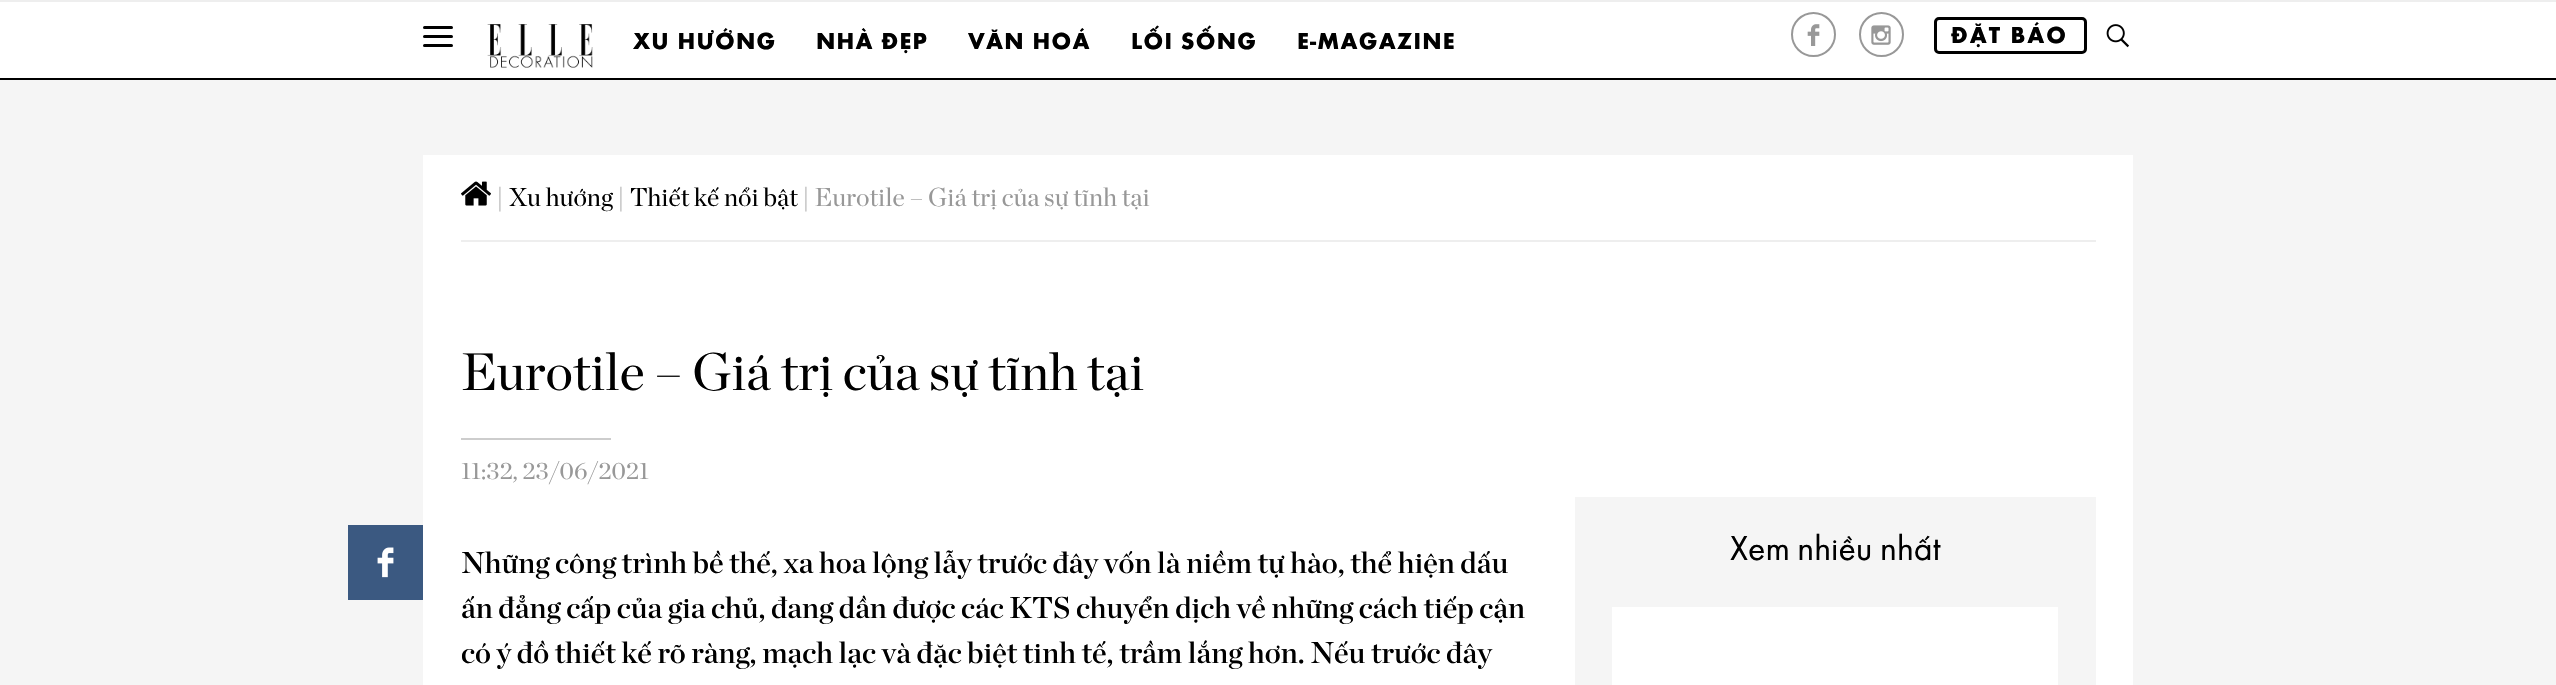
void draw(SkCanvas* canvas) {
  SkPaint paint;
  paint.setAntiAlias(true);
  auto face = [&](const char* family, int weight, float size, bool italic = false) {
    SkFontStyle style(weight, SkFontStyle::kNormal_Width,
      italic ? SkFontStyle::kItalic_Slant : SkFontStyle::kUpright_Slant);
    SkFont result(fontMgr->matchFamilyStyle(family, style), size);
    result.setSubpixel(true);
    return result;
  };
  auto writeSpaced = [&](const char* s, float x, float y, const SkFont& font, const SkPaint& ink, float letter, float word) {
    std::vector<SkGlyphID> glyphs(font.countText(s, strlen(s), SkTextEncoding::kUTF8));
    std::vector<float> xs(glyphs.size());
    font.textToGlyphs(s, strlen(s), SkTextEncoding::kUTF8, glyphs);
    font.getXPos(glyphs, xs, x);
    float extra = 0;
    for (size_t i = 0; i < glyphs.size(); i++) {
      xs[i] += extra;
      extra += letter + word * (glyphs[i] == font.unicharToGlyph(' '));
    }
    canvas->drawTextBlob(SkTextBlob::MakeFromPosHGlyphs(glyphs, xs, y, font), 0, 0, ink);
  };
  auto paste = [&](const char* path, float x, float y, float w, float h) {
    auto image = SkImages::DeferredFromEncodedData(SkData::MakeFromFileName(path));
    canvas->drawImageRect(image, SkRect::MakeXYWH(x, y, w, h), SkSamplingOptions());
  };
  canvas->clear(0xfff5f5f5);
  {
    const struct { float x, y, w, h; SkColor color; } items[] = {
      {0, 2, 2556, 76, 0xffffffff},
      {0, 78, 2556, 2, 0xff000000},
      {0, 0, 2556, 2, 0xffeeeeee},
    };
    for (auto [x, y, w, h, color] : items) {
      paint.setColor(color);
      canvas->drawRect(SkRect::MakeXYWH(x, y, w, h), paint);
    }
  }
  paint.setColor(0xff000000);
  canvas->drawRoundRect(SkRect::MakeXYWH(423, 26, 30, 3), 1.5f, 1.5f, paint);
  canvas->drawRoundRect(SkRect::MakeXYWH(423, 35, 30, 3), 1.5f, 1.5f, paint);
  canvas->drawRoundRect(SkRect::MakeXYWH(423, 44, 30, 3), 1.5f, 1.5f, paint);
  paste("img/1.png", 487, 24, 106, 44);
  paint.setStroke(true);
  paint.setStrokeWidth(2);
  paint.setColor(0xff989898);
  canvas->drawCircle(1813.5f, 34.5f, 21.5f, paint);
  paste("img/2.png", 1807, 24, 13, 22);
  canvas->drawCircle(1881.5f, 34.5f, 21.5f, paint);
  paste("img/3.png", 1871, 25, 20, 20);
  paint.setStrokeWidth(3);
  paint.setColor(0xff000000);
  canvas->drawRoundRect(SkRect::MakeXYWH(1935.5f, 18.5f, 150, 34), 3.5f, 3.5f, paint);
  paste("img/4.png", 2106, 24, 23, 24);
  paint.setStroke(false);
  paint.setColor(0xffffffff);
  canvas->drawRect(SkRect::MakeXYWH(423, 155, 1710, 530), paint);
  paste("img/5.png", 461, 181, 30, 25);
  paint.setColor(0xffeeeeee);
  canvas->drawRect(SkRect::MakeXYWH(461, 240, 1635, 2), paint);
  paint.setColor(0xff3b5981);
  canvas->drawRect(SkRect::MakeXYWH(348, 525, 75, 75), paint);
  paste("img/6.png", 377, 547, 17, 31);
  {
    const struct { float x, y, w, h; SkColor color; } items[] = {
      {461, 438, 150, 2, 0xffcdcdcd},
      {1575, 497, 521, 188, 0xfff5f5f5},
      {1612, 607, 446, 78, 0xffffffff},
    };
    for (auto [x, y, w, h, color] : items) {
      paint.setColor(color);
      canvas->drawRect(SkRect::MakeXYWH(x, y, w, h), paint);
    }
  }
  auto f0 = face("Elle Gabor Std", 700, 24);
  paint.setColor(0xff000000);
  {
    const struct { const char* s; float x, y; } items[] = {
      {"XU HƯỚNG", 633, 49},
      {"NHÀ ĐẸP", 816, 49},
      {"VĂN HOÁ", 968, 49},
      {"LỐI SỐNG", 1131, 49},
      {"E-MAGAZINE", 1297, 49},
    };
    for (auto [s, x, y] : items) {
      writeSpaced(s, x, y, f0, paint, 1.25f, 0);
    }
  }
  writeSpaced("ĐẶT BÁO", 1951, 43, f0, paint, 2, 0);
  auto f1 = face("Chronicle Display", 400, 25.75f);
  paint.setColor(0xff989898);
  canvas->drawString("|", 496, 206, f1, paint);
  paint.setColor(0xff000000);
  canvas->drawString("Xu hướng", 509, 206, f1, paint);
  paint.setColor(0xff989898);
  canvas->drawString("|", 617, 206, f1, paint);
  paint.setColor(0xff000000);
  canvas->drawString("Thiết kế nổi bật", 630, 206, f1, paint);
  paint.setColor(0xff989898);
  canvas->drawString("| Eurotile – Giá trị của sự tĩnh tại", 802, 206, f1, paint);
  auto f2 = face("Chronicle Display", 400, 52.5f);
  paint.setColor(0xff000000);
  canvas->drawString("Eurotile – Giá trị của sự tĩnh tại", 461, 390, f2, paint);
  auto f3 = face("Chronicle Display", 400, 24);
  paint.setColor(0xff989898);
  canvas->drawString("11:32, 23/06/2021", 461, 479, f3, paint);
  auto f4 = face("Chronicle Display", 600, 30);
  paint.setColor(0xff000000);
  {
    const struct { const char* s; float x, y; } items[] = {
      {"Những công trình bề thế, xa hoa lộng lẫy trước đây vốn là niềm tự hào, thể hiện dấu", 461, 573},
      {"ấn đẳng cấp của gia chủ, đang dần được các KTS chuyển dịch về những cách tiếp cận", 461, 618},
      {"có ý đồ thiết kế rõ ràng, mạch lạc và đặc biệt tinh tế, trầm lắng hơn. Nếu trước đây", 461, 663},
    };
    for (auto [s, x, y] : items) {
      canvas->drawString(s, x, y, f4, paint);
    }
  }
  auto f5 = face("Elle Gabor Std", 400, 36);
  canvas->drawString("Xem nhiều nhất", 1730, 560, f5, paint);
}
